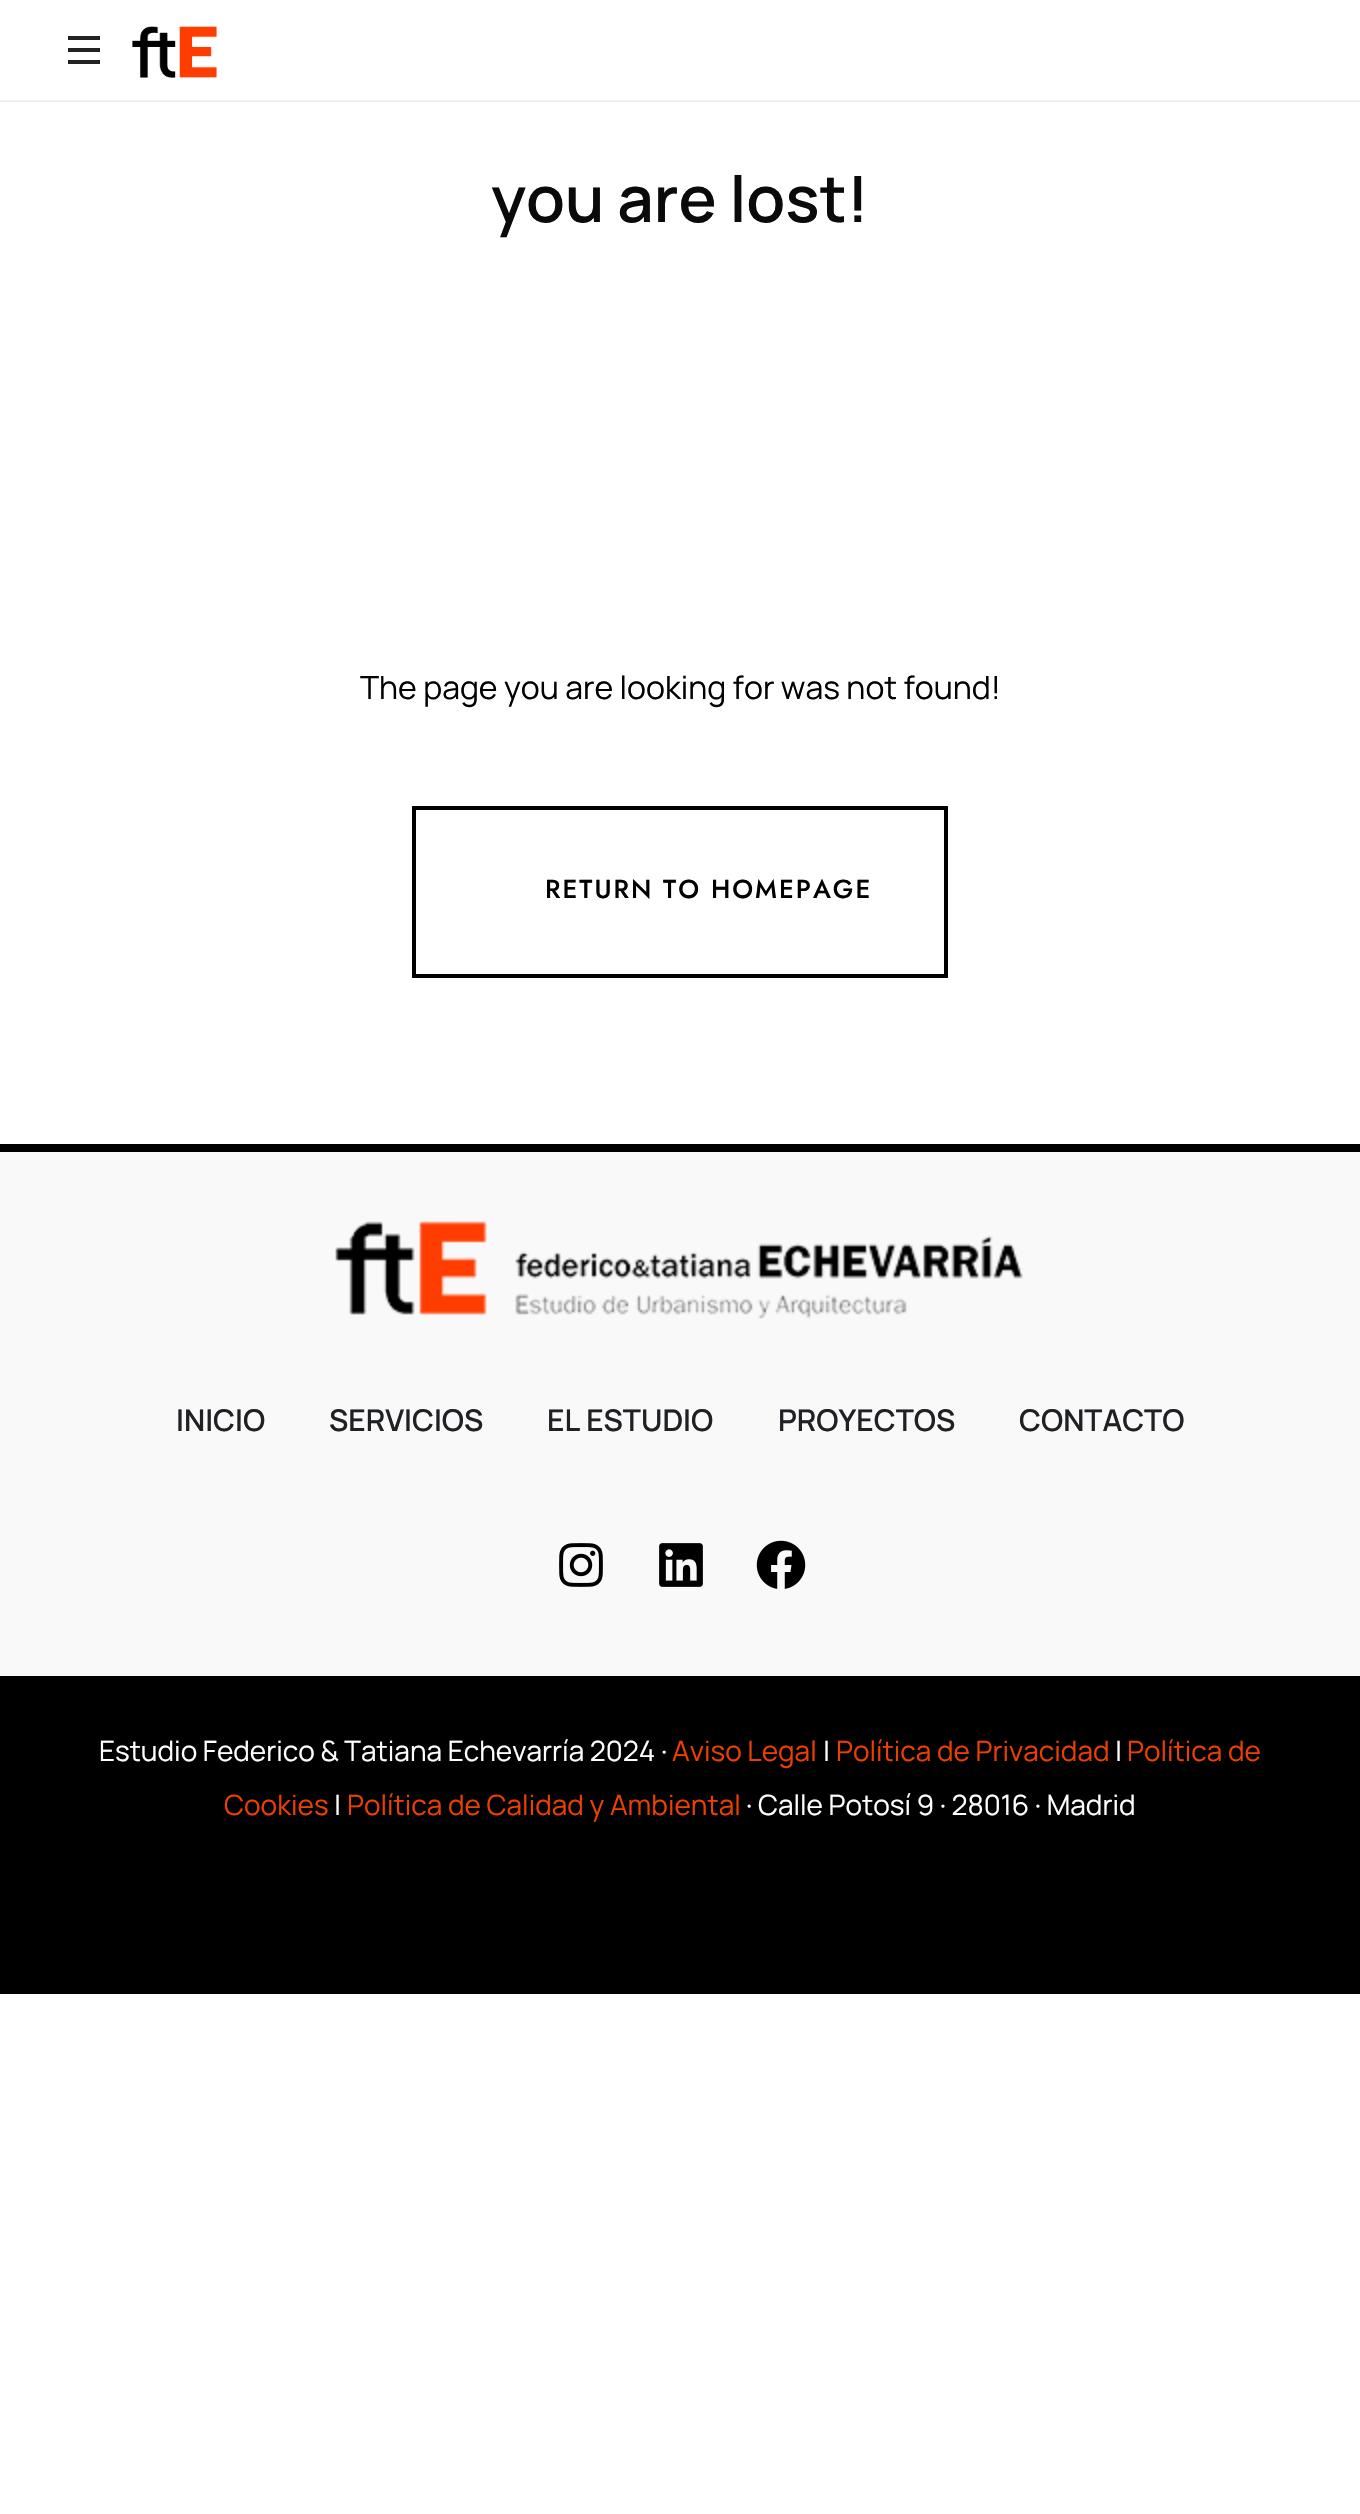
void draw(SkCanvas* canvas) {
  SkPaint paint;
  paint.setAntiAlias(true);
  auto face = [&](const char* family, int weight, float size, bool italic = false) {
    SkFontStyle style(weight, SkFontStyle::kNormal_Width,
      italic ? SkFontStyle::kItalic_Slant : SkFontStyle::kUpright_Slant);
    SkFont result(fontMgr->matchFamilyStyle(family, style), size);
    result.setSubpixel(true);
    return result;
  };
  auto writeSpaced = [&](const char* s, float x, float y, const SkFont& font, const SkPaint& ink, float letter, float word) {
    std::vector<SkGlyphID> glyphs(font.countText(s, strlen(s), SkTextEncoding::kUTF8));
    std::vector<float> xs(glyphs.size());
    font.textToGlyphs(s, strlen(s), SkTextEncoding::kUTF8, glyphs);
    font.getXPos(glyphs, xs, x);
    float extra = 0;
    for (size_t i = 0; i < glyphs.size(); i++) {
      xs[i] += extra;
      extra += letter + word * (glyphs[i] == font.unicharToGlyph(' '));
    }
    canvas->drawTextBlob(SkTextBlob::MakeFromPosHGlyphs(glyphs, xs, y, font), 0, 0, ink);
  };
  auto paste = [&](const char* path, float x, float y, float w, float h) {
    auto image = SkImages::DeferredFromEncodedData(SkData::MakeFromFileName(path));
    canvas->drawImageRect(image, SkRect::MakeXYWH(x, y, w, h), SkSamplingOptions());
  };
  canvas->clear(0xffffffff);
  {
    const struct { float x, y, w, h; SkColor color; } items[] = {
      {68, 48, 32, 4, 0xff222222},
      {68, 36, 32, 4, 0xff222222},
      {68, 60, 32, 4, 0xff222222},
    };
    for (auto [x, y, w, h, color] : items) {
      paint.setColor(color);
      canvas->drawRect(SkRect::MakeXYWH(x, y, w, h), paint);
    }
  }
  paste("img/1.png", 132, 26, 85, 52);
  paint.setColor(0xffeeeeee);
  canvas->drawRect(SkRect::MakeXYWH(0, 100, 1360, 2), paint);
  paint.setStroke(true);
  paint.setStrokeWidth(4);
  paint.setColor(0xff000000);
  canvas->drawRect(SkRect::MakeXYWH(414, 808, 532, 168), paint);
  paint.setStroke(false);
  paint.setColor(0xfff9f9f9);
  canvas->drawRect(SkRect::MakeXYWH(0, 1152, 1360, 524), paint);
  paint.setColor(0xff000000);
  canvas->drawRect(SkRect::MakeXYWH(0, 1144, 1360, 8), paint);
  paste("img/2.png", 335, 1221, 688, 98);
  paste("img/3.png", 559, 1543, 44, 44);
  paste("img/4.png", 659, 1543, 44, 44);
  paste("img/5.png", 756, 1540, 50, 49);
  canvas->drawRect(SkRect::MakeXYWH(0, 1676, 1360, 318), paint);
  auto f0 = face("Manrope", 600, 64);
  paint.setColor(0xff0a0a0a);
  canvas->drawString("you are lost!", 491, 222, f0, paint);
  auto f1 = face("Manrope", 400, 32);
  paint.setColor(0xff000000);
  canvas->drawString("The page you are looking for was not found!", 360, 699, f1, paint);
  auto f2 = face("Jost", 500, 26);
  writeSpaced("RETURN TO HOMEPAGE", 545, 898, f2, paint, 2, 0);
  auto f3 = face("Manrope", 600, 30);
  paint.setColor(0xff1f2124);
  {
    const struct { const char* s; float x, y; } items[] = {
      {"INICIO", 176, 1431},
      {"SERVICIOS", 329, 1431},
      {"EL ESTUDIO", 547, 1431},
      {"PROYECTOS", 778, 1431},
      {"CONTACTO", 1019, 1431},
    };
    for (auto [s, x, y] : items) {
      canvas->drawString(s, x, y, f3, paint);
    }
  }
  auto f4 = face("Manrope", 400, 28);
  paint.setColor(0xffffffff);
  canvas->drawString("Estudio Federico & Tatiana Echevarría 2024 ·", 99, 1761, f4, paint);
  paint.setColor(0xffec3f00);
  canvas->drawString("Aviso Legal", 672, 1761, f4, paint);
  paint.setColor(0xffffffff);
  canvas->drawString("|", 823, 1761, f4, paint);
  paint.setColor(0xffec3f00);
  canvas->drawString("Política de Privacidad", 836, 1761, f4, paint);
  paint.setColor(0xffffffff);
  canvas->drawString("|", 1115, 1761, f4, paint);
  paint.setColor(0xffec3f00);
  canvas->drawString("Política de", 1127, 1761, f4, paint);
  canvas->drawString("Cookies", 224, 1815, f4, paint);
  paint.setColor(0xffffffff);
  canvas->drawString("|", 334, 1815, f4, paint);
  paint.setColor(0xffec3f00);
  canvas->drawString("Política de Calidad y Ambiental", 347, 1815, f4, paint);
  paint.setColor(0xffffffff);
  canvas->drawString("· Calle Potosí 9 · 28016 · Madrid", 746, 1815, f4, paint);
}
